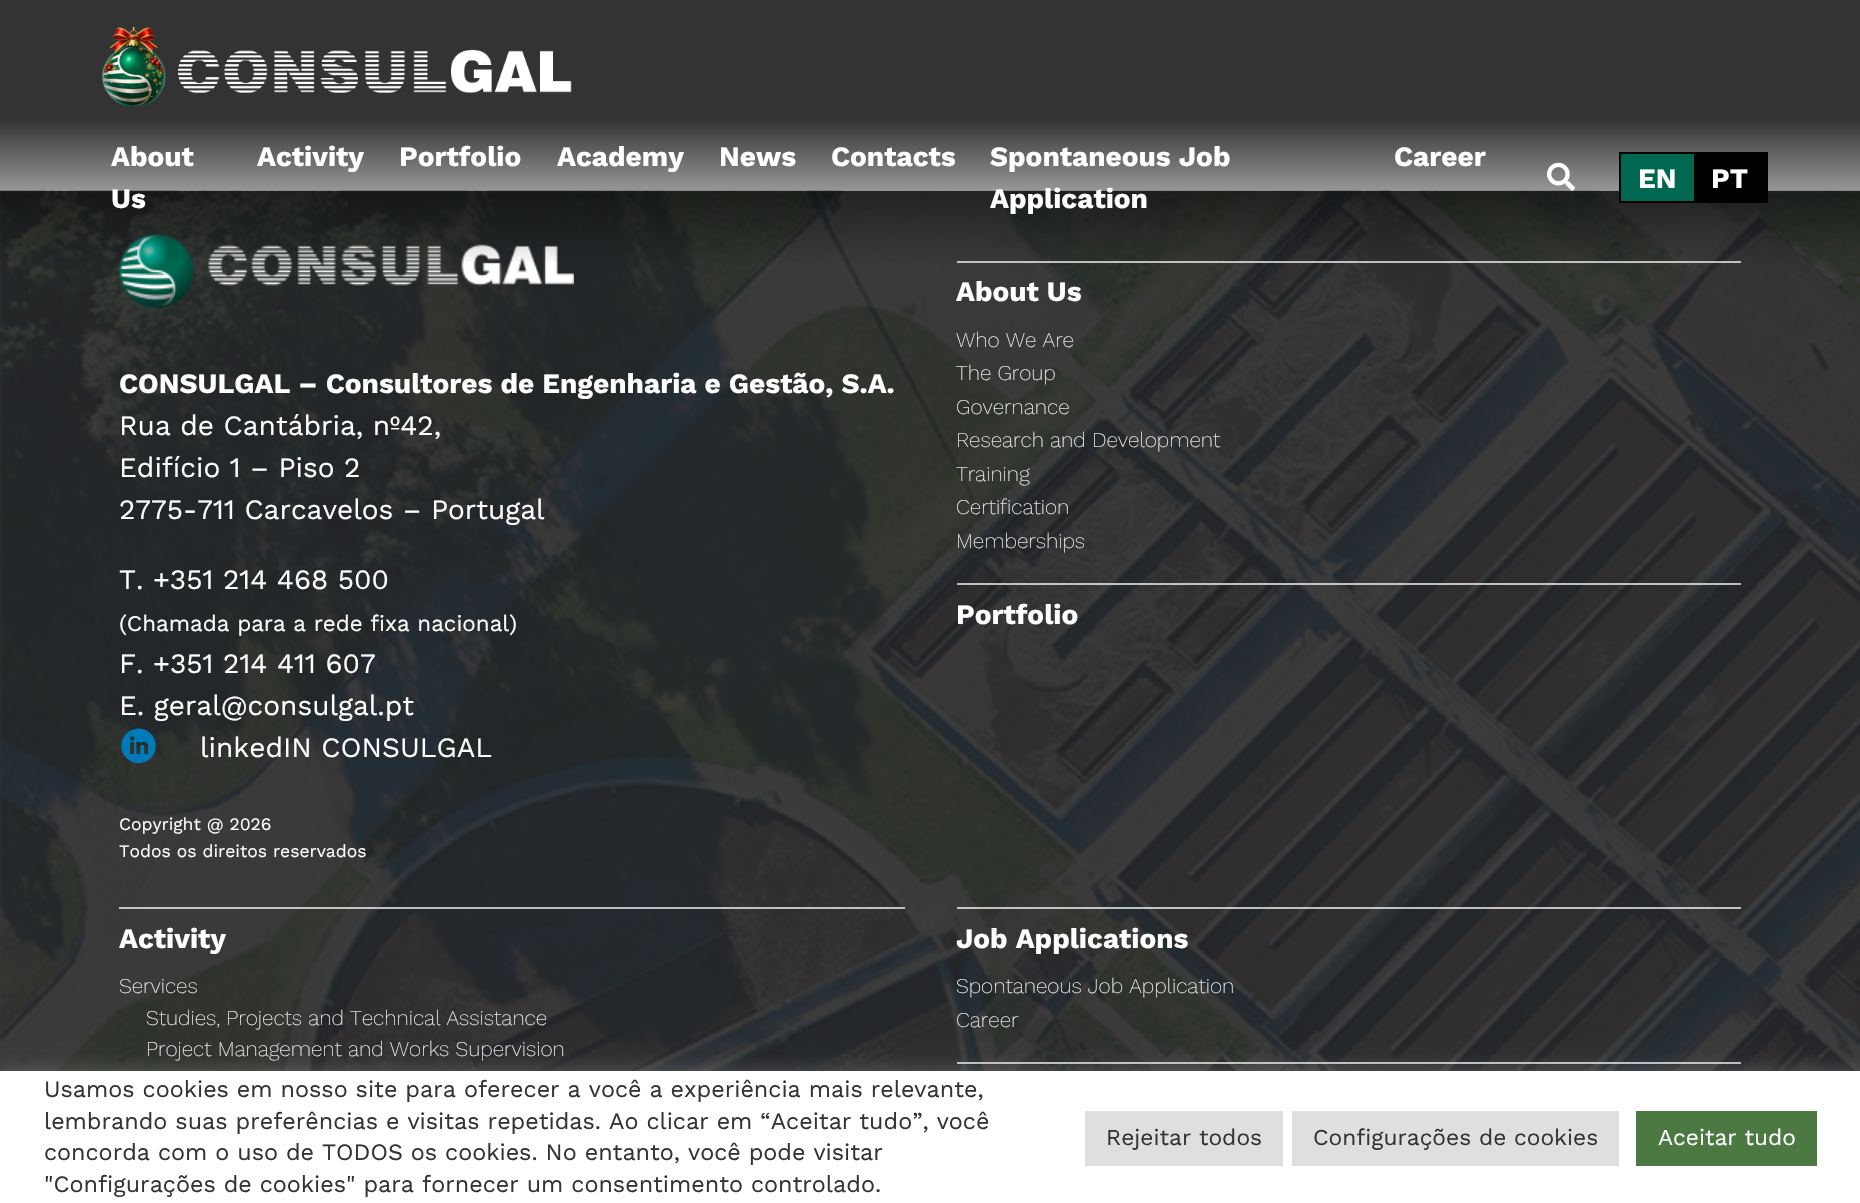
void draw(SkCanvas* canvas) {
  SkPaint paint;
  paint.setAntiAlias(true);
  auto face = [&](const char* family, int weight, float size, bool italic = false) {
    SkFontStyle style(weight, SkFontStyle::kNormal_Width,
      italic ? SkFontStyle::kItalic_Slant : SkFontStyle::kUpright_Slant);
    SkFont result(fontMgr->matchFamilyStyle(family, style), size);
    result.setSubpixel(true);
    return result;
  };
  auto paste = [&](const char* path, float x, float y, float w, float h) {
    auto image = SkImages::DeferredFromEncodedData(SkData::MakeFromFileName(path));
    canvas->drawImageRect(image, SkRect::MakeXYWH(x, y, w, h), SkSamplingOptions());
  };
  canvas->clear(0xffffffff);
  paste("img/3.png", 0, 190, 1860, 881);
  paste("img/4.png", 119, 234, 455, 74);
  paint.setColor(0xb3ffffff);
  canvas->drawRect(SkRect::MakeXYWH(957, 261, 784, 2), paint);
  {
    const SkColor colors[] = {0xcc000000, 0x03000000};
    const float stops[] = {0.45f, 1};
    const SkPoint ends[] = {{930, 0}, {930, 264}};
    paint.setShader(SkGradientShader::MakeLinear(ends, colors, stops, 2, SkTileMode::kClamp));
    paint.setAlpha(255);
  }
  canvas->drawRect(SkRect::MakeXYWH(0, 0, 1860, 262), paint);
  paste("img/1.png", 102, 26, 470, 81);
  paste("img/2.png", 1547, 162, 28, 29);
  paint.setShader(nullptr);
  paint.setColor(0xff000000);
  canvas->drawRect(SkRect::MakeXYWH(1619, 152, 149, 51), paint);
  paint.setColor(0xff006750);
  canvas->drawRect(SkRect::MakeXYWH(1621, 154, 73, 47), paint);
  paste("img/5.png", 121, 728, 35, 35);
  {
    const struct { float x, y, w, h; SkColor color; } items[] = {
      {957, 583, 784, 2, 0xb3ffffff},
      {119, 907, 786, 2, 0xb3ffffff},
      {957, 907, 784, 2, 0xb3ffffff},
      {957, 1062, 784, 2, 0xb3ffffff},
    };
    for (auto [x, y, w, h, color] : items) {
      paint.setColor(color);
      canvas->drawRect(SkRect::MakeXYWH(x, y, w, h), paint);
    }
  }
  paint.setColor(0x4dacabab);
  paint.setMaskFilter(SkMaskFilter::MakeBlur(kNormal_SkBlurStyle, 9));
  canvas->drawRect(SkRect::MakeXYWH(0, 1069, 1860, 133), paint);
  paint.setMaskFilter(nullptr);
  {
    const struct { float x, y, w, h; SkColor color; } items[] = {
      {0, 1071, 1860, 132, 0xffffffff},
      {1085, 1111, 198, 55, 0xffdedfe0},
      {1292, 1111, 327, 55, 0xffdedfe0},
      {1636, 1111, 181, 55, 0xff4c7841},
    };
    for (auto [x, y, w, h, color] : items) {
      paint.setColor(color);
      canvas->drawRect(SkRect::MakeXYWH(x, y, w, h), paint);
    }
  }
  auto f0 = face("Work Sans", 700, 28);
  paint.setColor(0xffffffff);
  {
    const struct { const char* s; float x, y; } items[] = {
      {"About", 111, 166},
      {"Us", 111, 208},
      {"Activity", 257, 166},
      {"Portfolio", 399, 166},
      {"Academy", 557, 166},
      {"News", 719, 166},
      {"Contacts", 831, 166},
      {"Spontaneous Job", 990, 166},
      {"Application", 990, 208},
      {"Career", 1394, 166},
      {"EN", 1638, 188},
      {"PT", 1711, 188},
      {"CONSULGAL – Consultores de Engenharia e Gestão, S.A.", 119, 393},
    };
    for (auto [s, x, y] : items) {
      canvas->drawString(s, x, y, f0, paint);
    }
  }
  auto f1 = face("Work Sans", 400, 28);
  {
    const struct { const char* s; float x, y; } items[] = {
      {"Rua de Cantábria, nº42,", 119, 435},
      {"Edifício 1 – Piso 2", 119, 477},
      {"2775-711 Carcavelos – Portugal", 119, 519},
      {"T. +351 214 468 500", 119, 589},
    };
    for (auto [s, x, y] : items) {
      canvas->drawString(s, x, y, f1, paint);
    }
  }
  auto f2 = face("Work Sans", 400, 22.4f);
  canvas->drawString("(Chamada para a rede fixa nacional)", 119, 631, f2, paint);
  {
    const struct { const char* s; float x, y; } items[] = {
      {"F. +351 214 411 607", 119, 673},
      {"E. geral@consulgal.pt", 119, 715},
      {"linkedIN CONSULGAL", 200, 757},
    };
    for (auto [s, x, y] : items) {
      canvas->drawString(s, x, y, f1, paint);
    }
  }
  auto f3 = face("Work Sans", 400, 17.5f);
  canvas->drawString("Copyright @ 2026", 119, 830, f3, paint);
  canvas->drawString("Todos os direitos reservados", 119, 857, f3, paint);
  canvas->drawString("About Us", 956, 301, f0, paint);
  auto f4 = face("Work Sans", 200, 21);
  {
    const struct { const char* s; float x, y; } items[] = {
      {"Who We Are", 956, 347},
      {"The Group", 956, 380},
      {"Governance", 956, 414},
      {"Research and Development", 956, 447},
      {"Training", 956, 481},
      {"Certification", 956, 514},
      {"Memberships", 956, 548},
    };
    for (auto [s, x, y] : items) {
      canvas->drawString(s, x, y, f4, paint);
    }
  }
  canvas->drawString("Portfolio", 956, 624, f0, paint);
  canvas->drawString("Activity", 119, 948, f0, paint);
  {
    const struct { const char* s; float x, y; } items[] = {
      {"Services", 119, 993},
      {"Studies, Projects and Technical Assistance", 146, 1025},
      {"Project Management and Works Supervision", 146, 1056},
    };
    for (auto [s, x, y] : items) {
      canvas->drawString(s, x, y, f4, paint);
    }
  }
  canvas->drawString("Job Applications", 956, 948, f0, paint);
  canvas->drawString("Spontaneous Job Application", 956, 993, f4, paint);
  canvas->drawString("Career", 956, 1027, f4, paint);
  auto f5 = face("Work Sans", 400, 23.35f);
  paint.setColor(0xff333333);
  {
    const struct { const char* s; float x, y; } items[] = {
      {"Usamos cookies em nosso site para oferecer a você a experiência mais relevante,", 44, 1097},
      {"lembrando suas preferências e visitas repetidas. Ao clicar em “Aceitar tudo”, você", 44, 1129},
      {"concorda com o uso de TODOS os cookies. No entanto, você pode visitar", 44, 1160},
      {"\"Configurações de cookies\" para fornecer um consentimento controlado.", 44, 1192},
    };
    for (auto [s, x, y] : items) {
      canvas->drawString(s, x, y, f5, paint);
    }
  }
  auto f6 = face("Work Sans", 400, 22.75f);
  canvas->drawString("Rejeitar todos", 1106, 1145, f6, paint);
  canvas->drawString("Configurações de cookies", 1313, 1145, f6, paint);
  paint.setColor(0xffffffff);
  canvas->drawString("Aceitar tudo", 1658, 1145, f6, paint);
}
